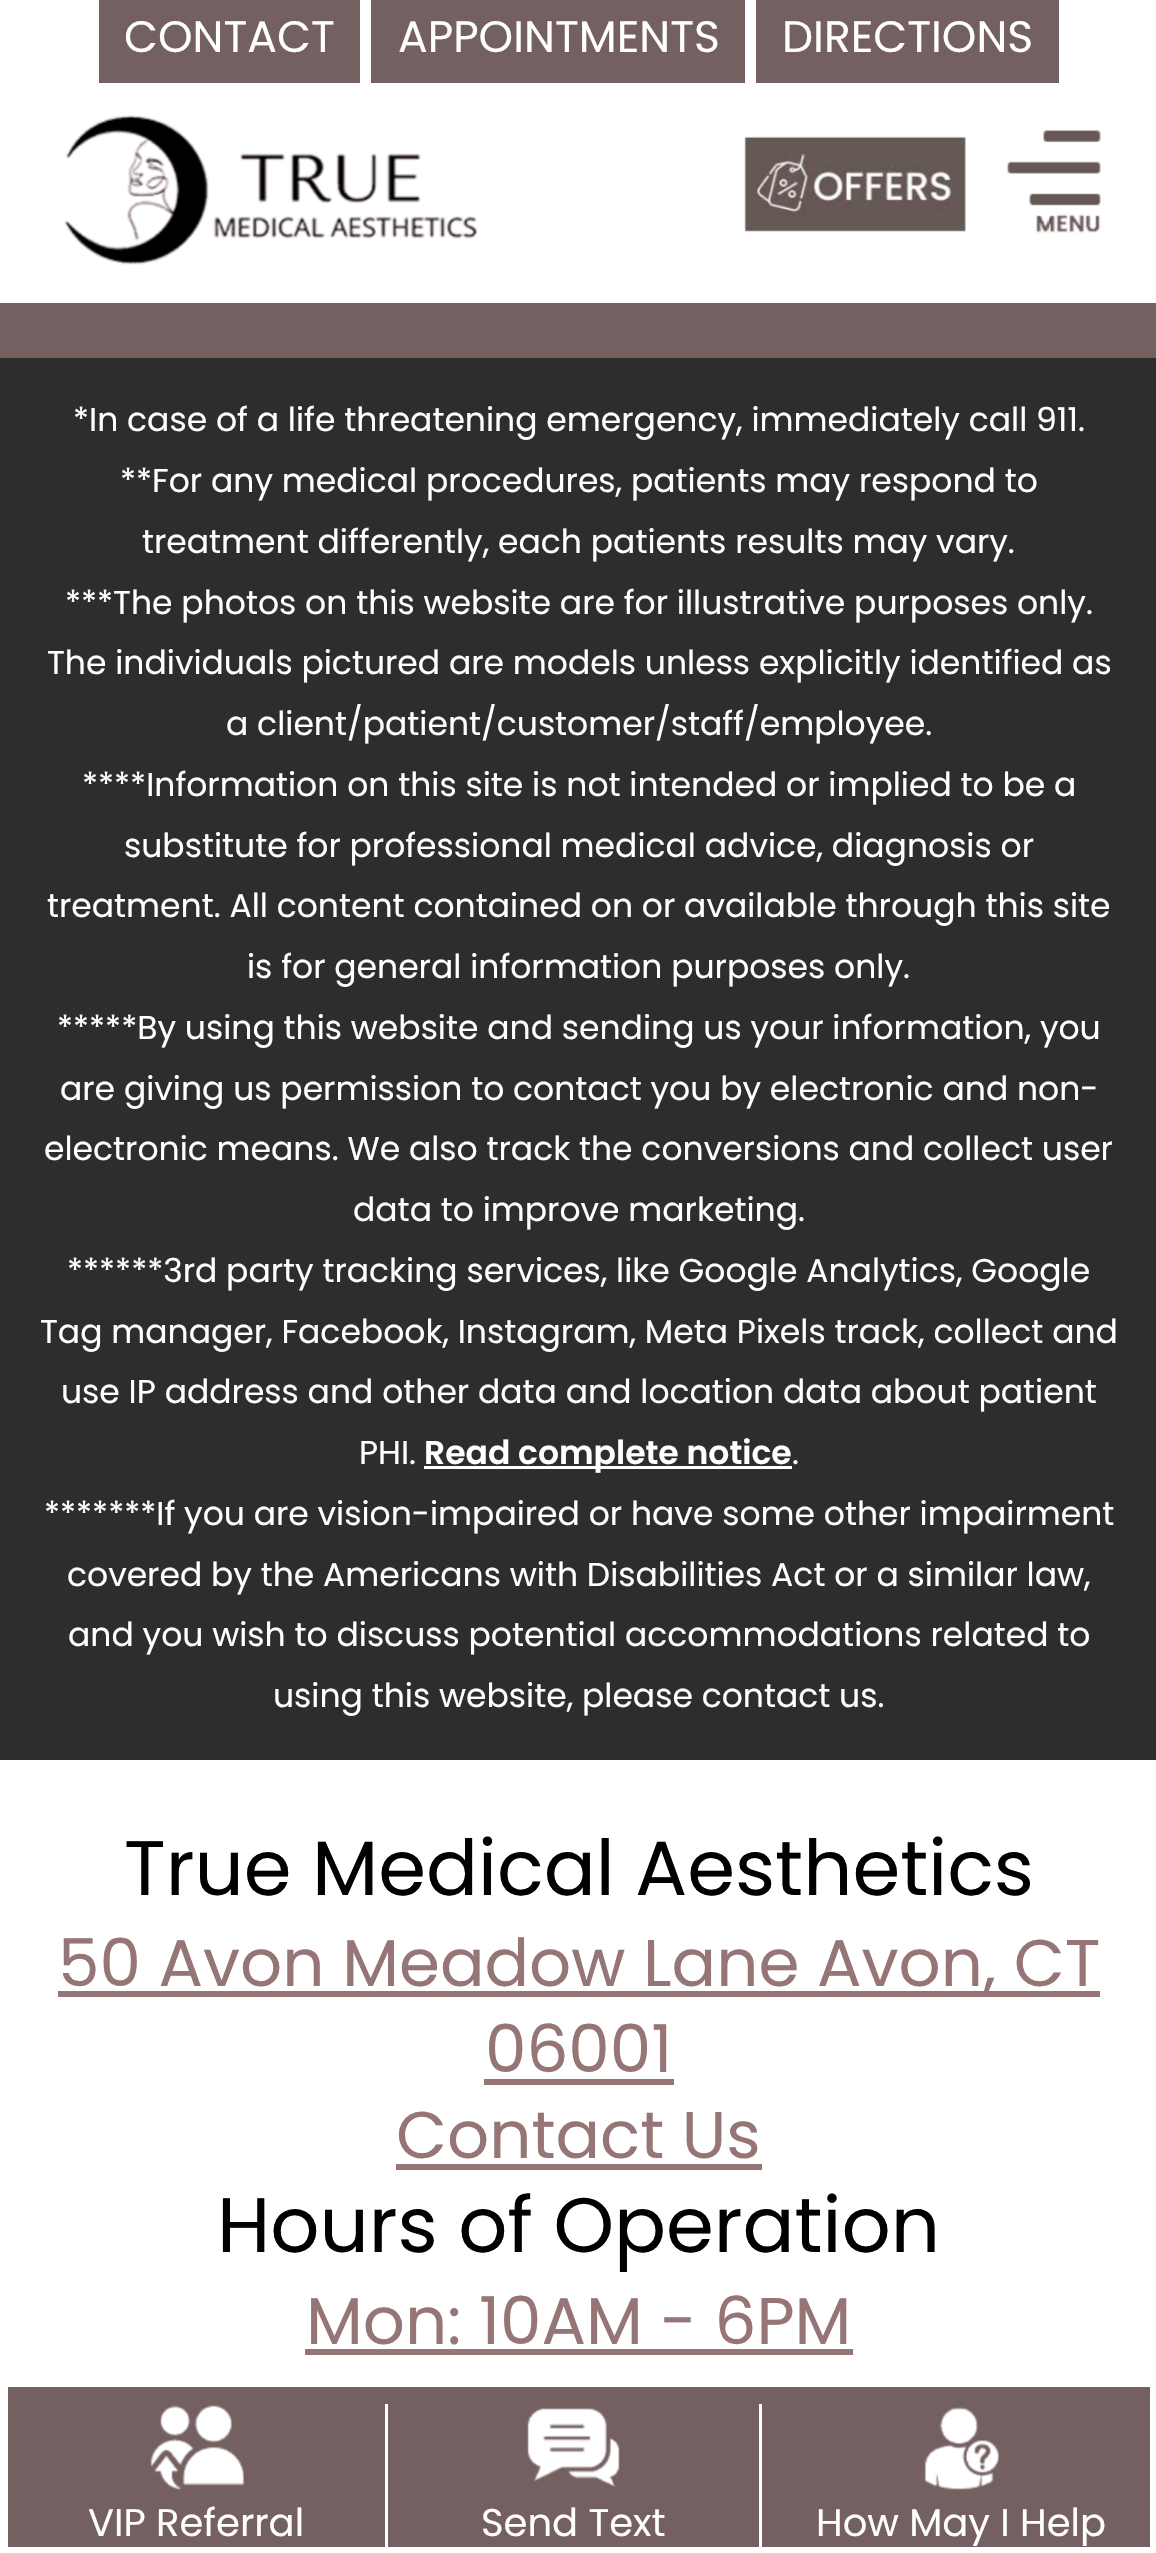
void draw(SkCanvas* canvas) {
  SkPaint paint;
  paint.setAntiAlias(true);
  auto face = [&](const char* family, int weight, float size, bool italic = false) {
    SkFontStyle style(weight, SkFontStyle::kNormal_Width,
      italic ? SkFontStyle::kItalic_Slant : SkFontStyle::kUpright_Slant);
    SkFont result(fontMgr->matchFamilyStyle(family, style), size);
    result.setSubpixel(true);
    return result;
  };
  auto paste = [&](const char* path, float x, float y, float w, float h) {
    auto image = SkImages::DeferredFromEncodedData(SkData::MakeFromFileName(path));
    canvas->drawImageRect(image, SkRect::MakeXYWH(x, y, w, h), SkSamplingOptions());
  };
  canvas->clear(0xffffffff);
  {
    const struct { float x, y, w, h; SkColor color; } items[] = {
      {99, 0, 261, 83, 0xff746061},
      {371, 0, 374, 83, 0xff746061},
      {756, 0, 303, 83, 0xff746061},
    };
    for (auto [x, y, w, h, color] : items) {
      paint.setColor(color);
      canvas->drawRect(SkRect::MakeXYWH(x, y, w, h), paint);
    }
  }
  paste("img/1.png", 64, 115, 414, 150);
  paste("img/2.png", 744, 136, 222, 96);
  paste("img/3.png", 1007, 129, 94, 104);
  {
    const struct { float x, y, w, h; SkColor color; } items[] = {
      {0, 303, 1156, 55, 0xff746061},
      {0, 358, 1156, 1402, 0xff2d2d2d},
      {424, 1466, 368, 3, 0xffffffff},
      {58, 1991, 1042, 6, 0xff957576},
      {484, 2079, 190, 6, 0xff957576},
      {396, 2164, 366, 6, 0xff957576},
      {305, 2349, 548, 6, 0xff957576},
      {8, 2387, 1142, 160, 0xff746061},
    };
    for (auto [x, y, w, h, color] : items) {
      paint.setColor(color);
      canvas->drawRect(SkRect::MakeXYWH(x, y, w, h), paint);
    }
  }
  paste("img/4.png", 150, 2405, 94, 85);
  paint.setColor(0xffffffff);
  canvas->drawRect(SkRect::MakeXYWH(759, 2404, 3, 149), paint);
  canvas->drawRect(SkRect::MakeXYWH(385, 2404, 3, 149), paint);
  paste("img/5.png", 527, 2408, 93, 79);
  paste("img/6.png", 924, 2407, 75, 83);
  auto f0 = face("Poppins", 400, 44);
  {
    const struct { const char* s; float x, y; } items[] = {
      {"CONTACT", 124, 52},
      {"APPOINTMENTS", 398, 52},
      {"DIRECTIONS", 782, 52},
    };
    for (auto [s, x, y] : items) {
      canvas->drawString(s, x, y, f0, paint);
    }
  }
  auto f1 = face("Poppins", 400, 33);
  {
    const struct { const char* s; float x, y; } items[] = {
      {"*In case of a life threatening emergency, immediately call 911.", 73, 431},
      {"**For any medical procedures, patients may respond to", 120, 492},
      {"treatment differently, each patients results may vary.", 142, 553},
      {"***The photos on this website are for illustrative purposes only.", 65, 614},
      {"The individuals pictured are models unless explicitly identified as", 47, 674},
      {"a client/patient/customer/staff/employee.", 226, 735},
      {"****Information on this site is not intended or implied to be a", 82, 796},
      {"substitute for professional medical advice, diagnosis or", 124, 857},
      {"treatment. All content contained on or available through this site", 47, 917},
      {"is for general information purposes only.", 247, 978},
      {"*****By using this website and sending us your information, you", 57, 1039},
      {"are giving us permission to contact you by electronic and non-", 60, 1100},
      {"electronic means. We also track the conversions and collect user", 44, 1160},
      {"data to improve marketing.", 353, 1221},
      {"******3rd party tracking services, like Google Analytics, Google", 67, 1282},
      {"Tag manager, Facebook, Instagram, Meta Pixels track, collect and", 40, 1343},
      {"use IP address and other data and location data about patient", 61, 1403},
      {"PHI.", 359, 1464},
    };
    for (auto [s, x, y] : items) {
      canvas->drawString(s, x, y, f1, paint);
    }
  }
  auto f2 = face("Poppins", 600, 33);
  canvas->drawString("Read complete notice", 424, 1464, f2, paint);
  {
    const struct { const char* s; float x, y; } items[] = {
      {".", 792, 1464},
      {"*******If you are vision-impaired or have some other impairment", 44, 1525},
      {"covered by the Americans with Disabilities Act or a similar law,", 67, 1586},
      {"and you wish to discuss potential accommodations related to", 68, 1646},
      {"using this website, please contact us.", 273, 1707},
    };
    for (auto [s, x, y] : items) {
      canvas->drawString(s, x, y, f1, paint);
    }
  }
  auto f3 = face("Poppins", 400, 77);
  paint.setColor(0xff000000);
  canvas->drawString("True Medical Aesthetics", 124, 1895, f3, paint);
  auto f4 = face("Poppins", 400, 66);
  paint.setColor(0xff957576);
  {
    const struct { const char* s; float x, y; } items[] = {
      {"50 Avon Meadow Lane Avon, CT", 58, 1986},
      {"06001", 485, 2072},
      {"Contact Us", 396, 2158},
    };
    for (auto [s, x, y] : items) {
      canvas->drawString(s, x, y, f4, paint);
    }
  }
  paint.setColor(0xff000000);
  canvas->drawString("Hours of Operation", 217, 2252, f3, paint);
  paint.setColor(0xff957576);
  canvas->drawString("Mon: 10AM - 6PM", 306, 2344, f4, paint);
  auto f5 = face("Poppins", 400, 38.5f);
  paint.setColor(0xffffffff);
  {
    const struct { const char* s; float x, y; } items[] = {
      {"VIP Referral", 88, 2536},
      {"Send Text", 481, 2536},
      {"How May I Help", 816, 2536},
    };
    for (auto [s, x, y] : items) {
      canvas->drawString(s, x, y, f5, paint);
    }
  }
}
